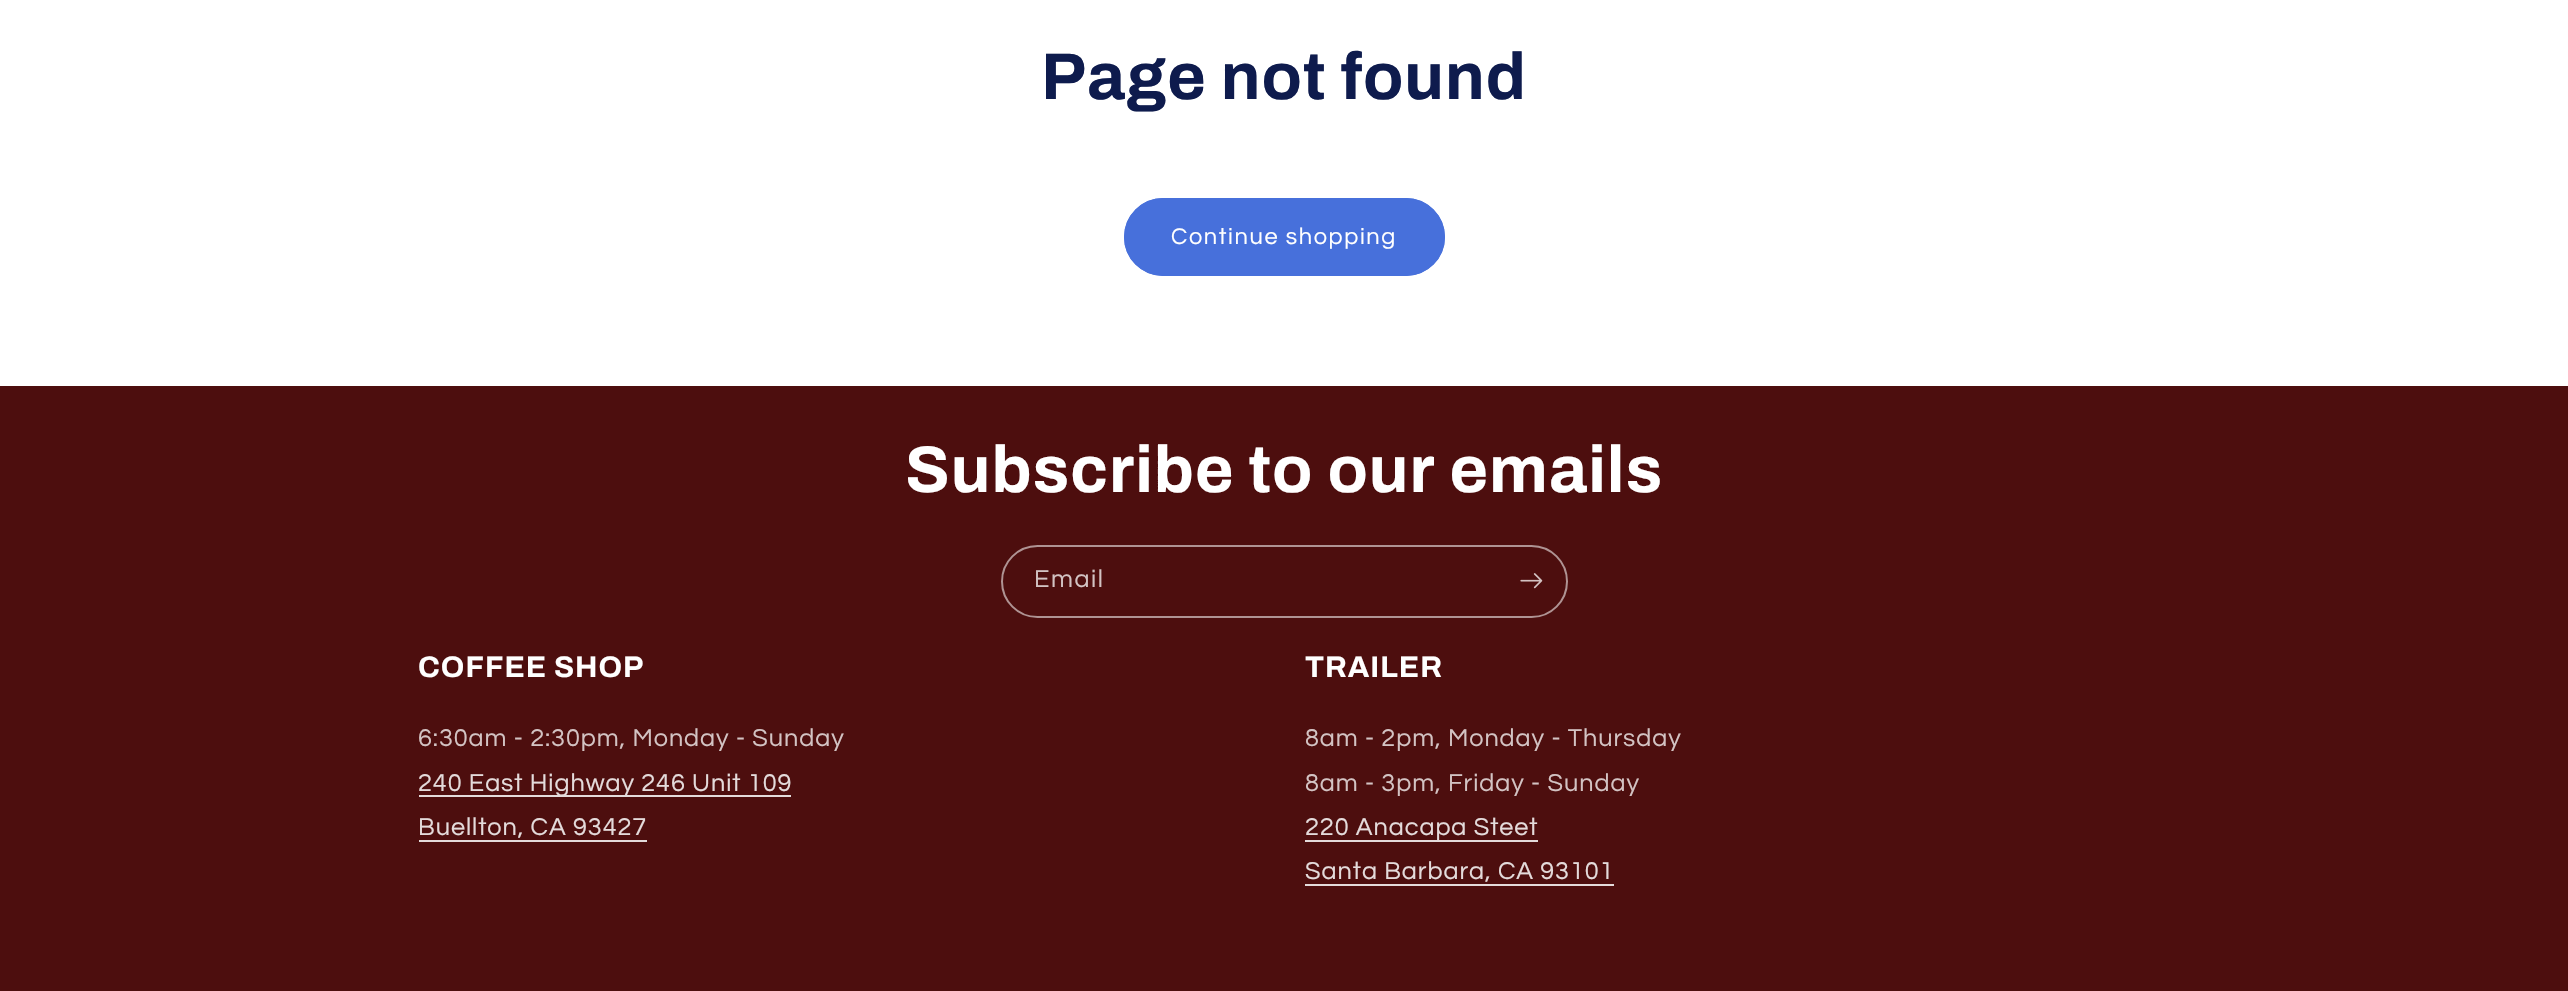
void draw(SkCanvas* canvas) {
  SkPaint paint;
  paint.setAntiAlias(true);
  auto face = [&](const char* family, int weight, float size, bool italic = false) {
    SkFontStyle style(weight, SkFontStyle::kNormal_Width,
      italic ? SkFontStyle::kItalic_Slant : SkFontStyle::kUpright_Slant);
    SkFont result(fontMgr->matchFamilyStyle(family, style), size);
    result.setSubpixel(true);
    return result;
  };
  auto writeSpaced = [&](const char* s, float x, float y, const SkFont& font, const SkPaint& ink, float letter, float word) {
    std::vector<SkGlyphID> glyphs(font.countText(s, strlen(s), SkTextEncoding::kUTF8));
    std::vector<float> xs(glyphs.size());
    font.textToGlyphs(s, strlen(s), SkTextEncoding::kUTF8, glyphs);
    font.getXPos(glyphs, xs, x);
    float extra = 0;
    for (size_t i = 0; i < glyphs.size(); i++) {
      xs[i] += extra;
      extra += letter + word * (glyphs[i] == font.unicharToGlyph(' '));
    }
    canvas->drawTextBlob(SkTextBlob::MakeFromPosHGlyphs(glyphs, xs, y, font), 0, 0, ink);
  };
  auto paste = [&](const char* path, float x, float y, float w, float h) {
    auto image = SkImages::DeferredFromEncodedData(SkData::MakeFromFileName(path));
    canvas->drawImageRect(image, SkRect::MakeXYWH(x, y, w, h), SkSamplingOptions());
  };
  canvas->clear(0xffffffff);
  paint.setColor(0xff4770db);
  canvas->drawRoundRect(SkRect::MakeXYWH(1124, 198, 321, 78), 39, 39, paint);
  paint.setStroke(true);
  paint.setStrokeWidth(3);
  canvas->drawRoundRect(SkRect::MakeXYWH(1125.5f, 199.5f, 318, 75), 37.5f, 37.5f, paint);
  paint.setStroke(false);
  paint.setColor(0xff4d0e0e);
  canvas->drawRect(SkRect::MakeXYWH(0, 386, 2568, 605), paint);
  paint.setStroke(true);
  paint.setStrokeWidth(2);
  paint.setColor(0xffaf9393);
  canvas->drawRoundRect(SkRect::MakeXYWH(1002, 546, 565, 71), 35.5f, 35.5f, paint);
  paste("img/1.png", 1520, 573, 23, 16);
  paint.setStroke(false);
  {
    const struct { float x, y, w, h; SkColor color; } items[] = {
      {419, 795, 372, 2, 0xffe4dbdb},
      {419, 840, 228, 2, 0xffe4dbdb},
      {1305, 840, 233, 2, 0xffe4dbdb},
      {1305, 884, 309, 2, 0xffe4dbdb},
    };
    for (auto [x, y, w, h, color] : items) {
      paint.setColor(color);
      canvas->drawRect(SkRect::MakeXYWH(x, y, w, h), paint);
    }
  }
  auto f0 = face("Archivo", 700, 66);
  paint.setColor(0xff0e1b4d);
  writeSpaced("Page not found", 1041, 99, f0, paint, 1, 0);
  auto f1 = face("Questrial", 400, 23.6f);
  paint.setColor(0xffffffff);
  writeSpaced("Continue shopping", 1171, 244, f1, paint, 1.6f, 0);
  writeSpaced("Subscribe to our emails", 905, 492, f0, paint, 1, 0);
  auto f2 = face("Questrial", 400, 25.25f);
  paint.setColor(0xffd3c3c3);
  writeSpaced("Email", 1034, 587, f2, paint, 1.6f, 0);
  auto f3 = face("Archivo", 700, 29.75f);
  paint.setColor(0xffffffff);
  writeSpaced("COFFEE SHOP", 418, 677, f3, paint, 1, 0);
  paint.setColor(0xffd3c3c3);
  writeSpaced("6:30am - 2:30pm, Monday - Sunday", 418, 746, f2, paint, 0.95f, 0);
  paint.setColor(0xffe4dbdb);
  writeSpaced("240 East Highway 246 Unit 109", 418, 791, f2, paint, 0.95f, 0);
  writeSpaced("Buellton, CA 93427", 418, 835, f2, paint, 0.95f, 0);
  paint.setColor(0xffffffff);
  writeSpaced("TRAILER", 1305, 677, f3, paint, 1, 0);
  paint.setColor(0xffd3c3c3);
  writeSpaced("8am - 2pm, Monday - Thursday", 1305, 746, f2, paint, 0.95f, 0);
  writeSpaced("8am - 3pm, Friday - Sunday", 1305, 791, f2, paint, 0.95f, 0);
  paint.setColor(0xffe4dbdb);
  writeSpaced("220 Anacapa Steet", 1305, 835, f2, paint, 0.95f, 0);
  writeSpaced("Santa Barbara, CA 93101", 1305, 879, f2, paint, 0.95f, 0);
}
